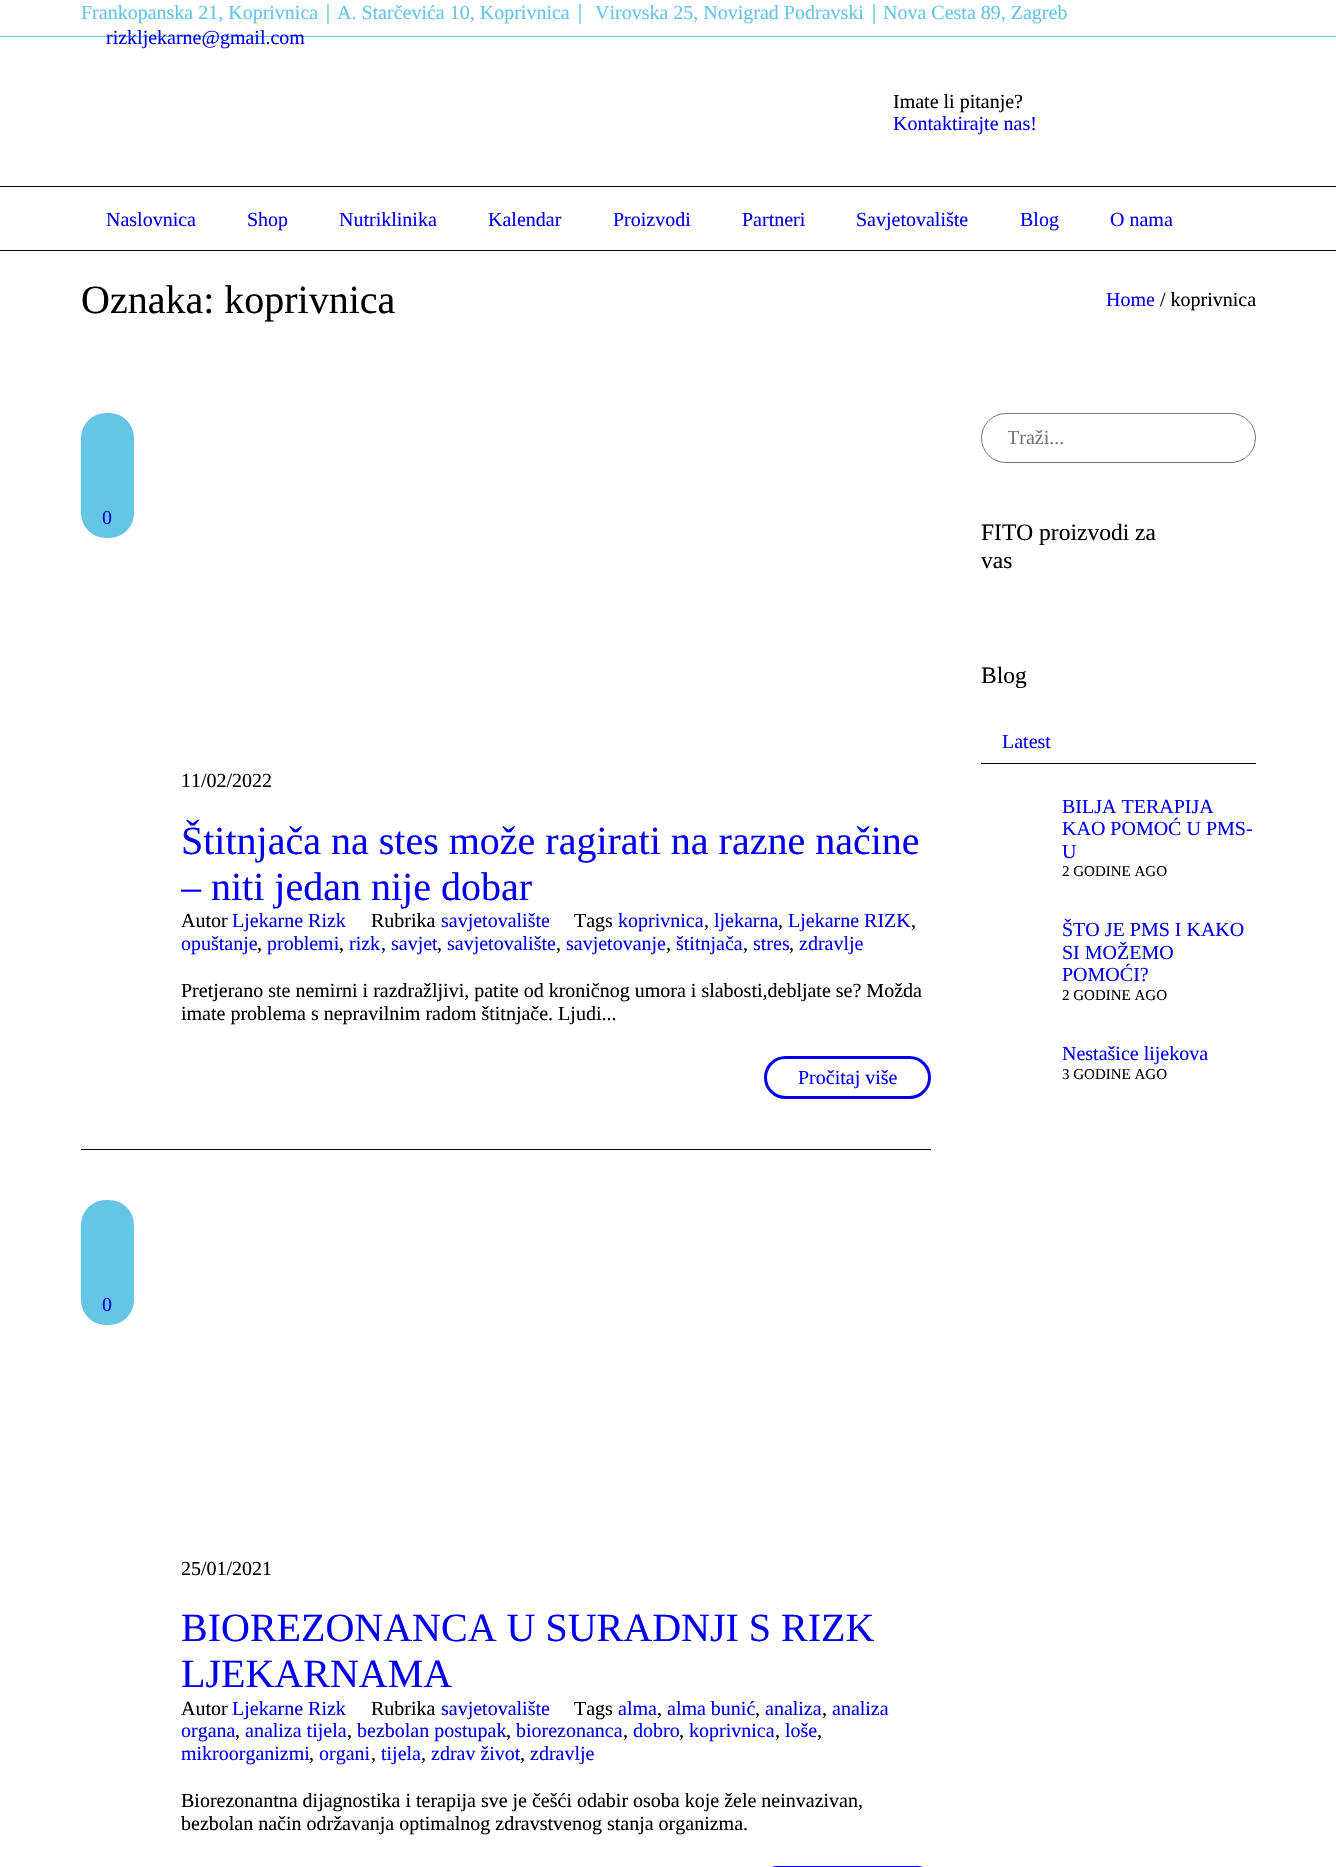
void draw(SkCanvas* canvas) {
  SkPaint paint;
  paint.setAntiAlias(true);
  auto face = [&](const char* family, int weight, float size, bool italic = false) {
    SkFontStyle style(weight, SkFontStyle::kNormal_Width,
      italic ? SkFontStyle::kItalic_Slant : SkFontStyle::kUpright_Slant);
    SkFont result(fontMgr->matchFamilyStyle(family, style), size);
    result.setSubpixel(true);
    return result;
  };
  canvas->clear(0xffffffff);
  {
    const struct { float x, y, w, h; SkColor color; } items[] = {
      {0, 36, 1336, 1, 0xff65c5e4},
      {0, 186, 1336, 1, 0xff000000},
      {0, 250, 1336, 1, 0xff000000},
    };
    for (auto [x, y, w, h, color] : items) {
      paint.setColor(color);
      canvas->drawRect(SkRect::MakeXYWH(x, y, w, h), paint);
    }
  }
  paint.setColor(0xff65c5e4);
  canvas->drawRoundRect(SkRect::MakeXYWH(82.5f, 414.5f, 50, 122), 23.5f, 23.5f, paint);
  paint.setStroke(true);
  paint.setStrokeWidth(3);
  canvas->drawRoundRect(SkRect::MakeXYWH(82.5f, 414.5f, 50, 122), 23.5f, 23.5f, paint);
  paint.setColor(0xff0000ee);
  canvas->drawRoundRect(SkRect::MakeXYWH(765.5f, 1057.5f, 164, 40), 20, 20, paint);
  paint.setStroke(false);
  paint.setColor(0xff000000);
  canvas->drawRect(SkRect::MakeXYWH(81, 1149, 850, 1), paint);
  paint.setColor(0xff65c5e4);
  canvas->drawRoundRect(SkRect::MakeXYWH(82.5f, 1201.5f, 50, 122), 23.5f, 23.5f, paint);
  paint.setStroke(true);
  canvas->drawRoundRect(SkRect::MakeXYWH(82.5f, 1201.5f, 50, 122), 23.5f, 23.5f, paint);
  paint.setColor(0xff0000ee);
  canvas->drawRoundRect(SkRect::MakeXYWH(765.5f, 1867.5f, 164, 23), 20, 20, paint);
  paint.setStrokeWidth(1);
  paint.setColor(0xff767676);
  canvas->drawRoundRect(SkRect::MakeXYWH(981.5f, 413.5f, 274, 49), 24.5f, 24.5f, paint);
  paint.setStroke(false);
  paint.setColor(0xff000000);
  canvas->drawRect(SkRect::MakeXYWH(981, 763, 275, 1), paint);
  auto f0 = face("Liberation Serif", 400, 20);
  paint.setColor(0xff65c5e4);
  canvas->drawString("Frankopanska 21, Koprivnica", 81, 19, f0, paint);
  auto f1 = face("WenQuanYi Zen Hei", 500, 20);
  canvas->drawString("｜", 318, 19, f1, paint);
  canvas->drawString("A. Starčevića 10, Koprivnica", 337, 19, f0, paint);
  canvas->drawString("｜", 570, 19, f1, paint);
  canvas->drawString("Virovska 25, Novigrad Podravski", 595, 19, f0, paint);
  canvas->drawString("｜", 864, 19, f1, paint);
  canvas->drawString("Nova Cesta 89, Zagreb", 883, 19, f0, paint);
  paint.setColor(0xff0000ee);
  canvas->drawString("rizkljekarne@gmail.com", 106, 44, f0, paint);
  paint.setColor(0xff000000);
  canvas->drawString("Imate li pitanje?", 893, 108, f0, paint);
  paint.setColor(0xff0000ee);
  {
    const struct { const char* s; float x, y; } items[] = {
      {"Kontaktirajte nas!", 893, 130},
      {"Naslovnica", 106, 226},
      {"Shop", 247, 226},
      {"Nutriklinika", 339, 226},
      {"Kalendar", 488, 226},
      {"Proizvodi", 613, 226},
      {"Partneri", 742, 226},
      {"Savjetovalište", 856, 226},
      {"Blog", 1020, 226},
      {"O nama", 1110, 226},
    };
    for (auto [s, x, y] : items) {
      canvas->drawString(s, x, y, f0, paint);
    }
  }
  auto f2 = face("Liberation Serif", 400, 40);
  paint.setColor(0xff000000);
  canvas->drawString("Oznaka: koprivnica", 81, 313, f2, paint);
  paint.setColor(0xff0000ee);
  canvas->drawString("Home", 1106, 306, f0, paint);
  paint.setColor(0xff000000);
  canvas->drawString("/ koprivnica", 1160, 306, f0, paint);
  paint.setColor(0xff0000ee);
  canvas->drawString("0", 102, 524, f0, paint);
  paint.setColor(0xff000000);
  canvas->drawString("11/02/2022", 181, 787, f0, paint);
  paint.setColor(0xff0000ee);
  canvas->drawString("Štitnjača na stes može ragirati na razne načine", 181, 854, f2, paint);
  canvas->save();
  canvas->clipRect(SkRect::MakeXYWH(181, 818, 750, 92));
  canvas->drawString("– niti jedan nije dobar", 181, 900, f2, paint);
  canvas->restore();
  paint.setColor(0xff000000);
  canvas->drawString("Autor", 181, 927, f0, paint);
  paint.setColor(0xff0000ee);
  canvas->drawString("Ljekarne Rizk", 232, 927, f0, paint);
  paint.setColor(0xff000000);
  canvas->drawString("Rubrika", 371, 927, f0, paint);
  paint.setColor(0xff0000ee);
  canvas->drawString("savjetovalište", 441, 927, f0, paint);
  paint.setColor(0xff000000);
  canvas->drawString("Tags", 574, 927, f0, paint);
  paint.setColor(0xff0000ee);
  canvas->drawString("koprivnica", 618, 927, f0, paint);
  paint.setColor(0xff000000);
  canvas->drawString(",", 704, 927, f0, paint);
  paint.setColor(0xff0000ee);
  canvas->drawString("ljekarna", 714, 927, f0, paint);
  paint.setColor(0xff000000);
  canvas->drawString(",", 778, 927, f0, paint);
  paint.setColor(0xff0000ee);
  canvas->drawString("Ljekarne RIZK", 788, 927, f0, paint);
  paint.setColor(0xff000000);
  canvas->drawString(",", 911, 927, f0, paint);
  paint.setColor(0xff0000ee);
  canvas->drawString("opuštanje", 181, 950, f0, paint);
  paint.setColor(0xff000000);
  canvas->drawString(",", 257, 950, f0, paint);
  paint.setColor(0xff0000ee);
  canvas->drawString("problemi", 267, 950, f0, paint);
  paint.setColor(0xff000000);
  canvas->drawString(",", 339, 950, f0, paint);
  paint.setColor(0xff0000ee);
  canvas->drawString("rizk", 349, 950, f0, paint);
  paint.setColor(0xff000000);
  canvas->drawString(",", 381, 950, f0, paint);
  paint.setColor(0xff0000ee);
  canvas->drawString("savjet", 391, 950, f0, paint);
  paint.setColor(0xff000000);
  canvas->drawString(",", 437, 950, f0, paint);
  paint.setColor(0xff0000ee);
  canvas->drawString("savjetovalište", 447, 950, f0, paint);
  paint.setColor(0xff000000);
  canvas->drawString(",", 556, 950, f0, paint);
  paint.setColor(0xff0000ee);
  canvas->drawString("savjetovanje", 566, 950, f0, paint);
  paint.setColor(0xff000000);
  canvas->drawString(",", 666, 950, f0, paint);
  paint.setColor(0xff0000ee);
  canvas->drawString("štitnjača", 676, 950, f0, paint);
  paint.setColor(0xff000000);
  canvas->drawString(",", 743, 950, f0, paint);
  paint.setColor(0xff0000ee);
  canvas->drawString("stres", 753, 950, f0, paint);
  paint.setColor(0xff000000);
  canvas->drawString(",", 789, 950, f0, paint);
  paint.setColor(0xff0000ee);
  canvas->drawString("zdravlje", 799, 950, f0, paint);
  paint.setColor(0xff000000);
  canvas->drawString("Pretjerano ste nemirni i razdražljivi, patite od kroničnog umora i slabosti,debljate se? Možda", 181, 997, f0, paint);
  canvas->drawString("imate problema s nepravilnim radom štitnjače. Ljudi...", 181, 1020, f0, paint);
  paint.setColor(0xff0000ee);
  canvas->drawString("Pročitaj više", 798, 1084, f0, paint);
  canvas->drawString("0", 102, 1311, f0, paint);
  paint.setColor(0xff000000);
  canvas->drawString("25/01/2021", 181, 1575, f0, paint);
  paint.setColor(0xff0000ee);
  canvas->drawString("BIOREZONANCA U SURADNJI S RIZK", 181, 1641, f2, paint);
  canvas->drawString("LJEKARNAMA", 181, 1687, f2, paint);
  paint.setColor(0xff000000);
  canvas->drawString("Autor", 181, 1715, f0, paint);
  paint.setColor(0xff0000ee);
  canvas->drawString("Ljekarne Rizk", 232, 1715, f0, paint);
  paint.setColor(0xff000000);
  canvas->drawString("Rubrika", 371, 1715, f0, paint);
  paint.setColor(0xff0000ee);
  canvas->drawString("savjetovalište", 441, 1715, f0, paint);
  paint.setColor(0xff000000);
  canvas->drawString("Tags", 574, 1715, f0, paint);
  paint.setColor(0xff0000ee);
  canvas->drawString("alma", 618, 1715, f0, paint);
  paint.setColor(0xff000000);
  canvas->drawString(",", 657, 1715, f0, paint);
  paint.setColor(0xff0000ee);
  canvas->drawString("alma bunić", 667, 1715, f0, paint);
  paint.setColor(0xff000000);
  canvas->drawString(",", 755, 1715, f0, paint);
  paint.setColor(0xff0000ee);
  canvas->drawString("analiza", 765, 1715, f0, paint);
  paint.setColor(0xff000000);
  canvas->drawString(",", 822, 1715, f0, paint);
  paint.setColor(0xff0000ee);
  canvas->drawString("analiza", 832, 1715, f0, paint);
  canvas->drawString("organa", 181, 1737, f0, paint);
  paint.setColor(0xff000000);
  canvas->drawString(",", 235, 1737, f0, paint);
  paint.setColor(0xff0000ee);
  canvas->drawString("analiza tijela", 245, 1737, f0, paint);
  paint.setColor(0xff000000);
  canvas->drawString(",", 347, 1737, f0, paint);
  paint.setColor(0xff0000ee);
  canvas->drawString("bezbolan postupak", 357, 1737, f0, paint);
  paint.setColor(0xff000000);
  canvas->drawString(",", 506, 1737, f0, paint);
  paint.setColor(0xff0000ee);
  canvas->drawString("biorezonanca", 516, 1737, f0, paint);
  paint.setColor(0xff000000);
  canvas->drawString(",", 623, 1737, f0, paint);
  paint.setColor(0xff0000ee);
  canvas->drawString("dobro", 633, 1737, f0, paint);
  paint.setColor(0xff000000);
  canvas->drawString(",", 679, 1737, f0, paint);
  paint.setColor(0xff0000ee);
  canvas->drawString("koprivnica", 689, 1737, f0, paint);
  paint.setColor(0xff000000);
  canvas->drawString(",", 775, 1737, f0, paint);
  paint.setColor(0xff0000ee);
  canvas->drawString("loše", 785, 1737, f0, paint);
  paint.setColor(0xff000000);
  canvas->drawString(",", 817, 1737, f0, paint);
  paint.setColor(0xff0000ee);
  canvas->drawString("mikroorganizmi", 181, 1760, f0, paint);
  paint.setColor(0xff000000);
  canvas->drawString(",", 309, 1760, f0, paint);
  paint.setColor(0xff0000ee);
  canvas->drawString("organi", 319, 1760, f0, paint);
  paint.setColor(0xff000000);
  canvas->drawString(",", 371, 1760, f0, paint);
  paint.setColor(0xff0000ee);
  canvas->drawString("tijela", 381, 1760, f0, paint);
  paint.setColor(0xff000000);
  canvas->drawString(",", 421, 1760, f0, paint);
  paint.setColor(0xff0000ee);
  canvas->drawString("zdrav život", 431, 1760, f0, paint);
  paint.setColor(0xff000000);
  canvas->drawString(",", 520, 1760, f0, paint);
  paint.setColor(0xff0000ee);
  canvas->drawString("zdravlje", 530, 1760, f0, paint);
  paint.setColor(0xff000000);
  canvas->drawString("Biorezonantna dijagnostika i terapija sve je češći odabir osoba koje žele neinvazivan,", 181, 1807, f0, paint);
  canvas->drawString("bezbolan način održavanja optimalnog zdravstvenog stanja organizma.", 181, 1830, f0, paint);
  canvas->save();
  canvas->clipRect(SkRect::MakeXYWH(1008, 426, 191, 23));
  paint.setColor(0xff757575);
  canvas->drawString("Traži...", 1007, 444, f0, paint);
  canvas->restore();
  auto f3 = face("Liberation Serif", 400, 23.5f);
  paint.setColor(0xff000000);
  {
    const struct { const char* s; float x, y; } items[] = {
      {"FITO proizvodi za", 981, 540},
      {"vas", 981, 568},
      {"Blog", 981, 683},
    };
    for (auto [s, x, y] : items) {
      canvas->drawString(s, x, y, f3, paint);
    }
  }
  paint.setColor(0xff0000ee);
  {
    const struct { const char* s; float x, y; } items[] = {
      {"Latest", 1002, 748},
      {"BILJA TERAPIJA", 1062, 813},
      {"KAO POMOĆ U PMS-", 1062, 835},
      {"U", 1062, 858},
    };
    for (auto [s, x, y] : items) {
      canvas->drawString(s, x, y, f0, paint);
    }
  }
  auto f4 = face("Liberation Serif", 400, 15);
  paint.setColor(0xff000000);
  canvas->drawString("2 GODINE AGO", 1062, 876, f4, paint);
  paint.setColor(0xff0000ee);
  {
    const struct { const char* s; float x, y; } items[] = {
      {"ŠTO JE PMS I KAKO", 1062, 936},
      {"SI MOŽEMO", 1062, 959},
      {"POMOĆI?", 1062, 981},
    };
    for (auto [s, x, y] : items) {
      canvas->drawString(s, x, y, f0, paint);
    }
  }
  paint.setColor(0xff000000);
  canvas->drawString("2 GODINE AGO", 1062, 1000, f4, paint);
  paint.setColor(0xff0000ee);
  canvas->drawString("Nestašice lijekova", 1062, 1060, f0, paint);
  paint.setColor(0xff000000);
  canvas->drawString("3 GODINE AGO", 1062, 1079, f4, paint);
}
